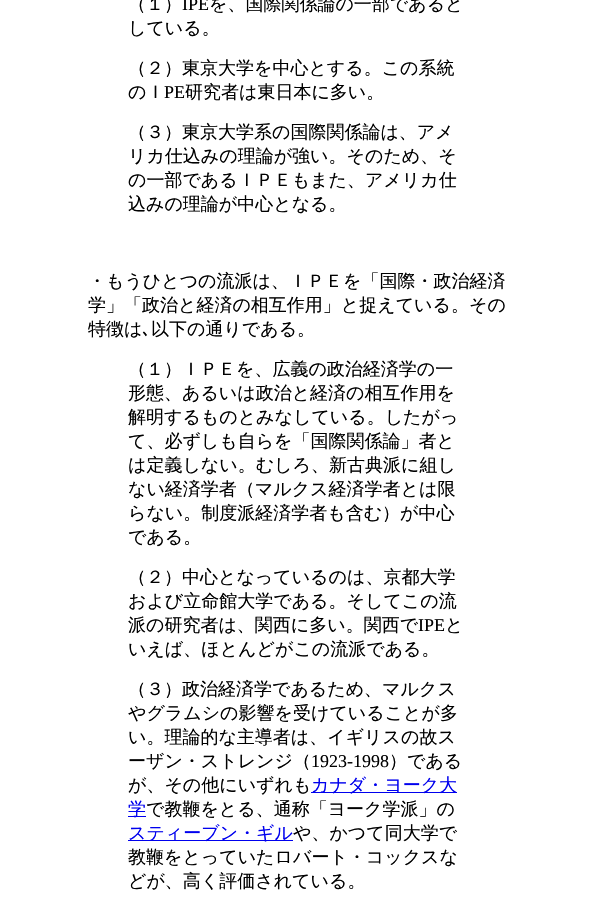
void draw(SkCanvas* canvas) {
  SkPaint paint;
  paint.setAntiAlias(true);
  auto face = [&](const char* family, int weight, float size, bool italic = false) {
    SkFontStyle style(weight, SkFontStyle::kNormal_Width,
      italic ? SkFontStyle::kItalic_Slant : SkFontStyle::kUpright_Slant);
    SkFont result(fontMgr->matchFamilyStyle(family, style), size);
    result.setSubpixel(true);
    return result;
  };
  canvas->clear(0xffffffff);
  {
    const struct { float x, y, w, h; SkColor color; } items[] = {
      {311, 792, 146, 1, 0xff0000ee},
      {128, 816, 18, 1, 0xff0000ee},
      {128, 840, 165, 1, 0xff0000ee},
    };
    for (auto [x, y, w, h, color] : items) {
      paint.setColor(color);
      canvas->drawRect(SkRect::MakeXYWH(x, y, w, h), paint);
    }
  }
  auto f0 = face("WenQuanYi Zen Hei", 500, 18);
  paint.setColor(0xff000000);
  canvas->drawString("（１）", 128, 10, f0, paint);
  auto f1 = face("Liberation Serif", 400, 18);
  canvas->drawString("IPE", 182, 10, f1, paint);
  {
    const struct { const char* s; float x, y; } items[] = {
      {"を、国際関係論の一部であると", 209, 10},
      {"している。", 128, 34},
      {"（２）東京大学を中心とする。この系統", 128, 74},
      {"のＩ", 128, 98},
    };
    for (auto [s, x, y] : items) {
      canvas->drawString(s, x, y, f0, paint);
    }
  }
  canvas->drawString("PE", 164, 98, f1, paint);
  {
    const struct { const char* s; float x, y; } items[] = {
      {"研究者は東日本に多い。", 185, 98},
      {"（３）東京大学系の国際関係論は、アメ", 128, 138},
      {"リカ仕込みの理論が強い。そのため、そ", 128, 162},
      {"の一部であるＩＰＥもまた、アメリカ仕", 128, 186},
      {"込みの理論が中心となる。", 128, 210},
      {"・もうひとつの流派は、ＩＰＥを「国際・政治経済", 88, 287},
      {"学」「政治と経済の相互作用」と捉えている。その", 88, 311},
      {"特徴は", 88, 335},
    };
    for (auto [s, x, y] : items) {
      canvas->drawString(s, x, y, f0, paint);
    }
  }
  auto f2 = face("IPAGothic", 400, 18);
  canvas->drawString("､", 142, 335, f2, paint);
  {
    const struct { const char* s; float x, y; } items[] = {
      {"以下の通りである。", 151, 335},
      {"（１）ＩＰＥを、広義の政治経済学の一", 128, 375},
      {"形態、あるいは政治と経済の相互作用を", 128, 399},
      {"解明するものとみなしている。したがっ", 128, 423},
      {"て、必ずしも自らを「国際関係論」者と", 128, 447},
      {"は定義しない。むしろ、新古典派に組し", 128, 471},
      {"ない経済学者（マルクス経済学者とは限", 128, 495},
      {"らない。制度派経済学者も含む）が中心", 128, 519},
      {"である。", 128, 543},
      {"（２）中心となっているのは、京都大学", 128, 583},
      {"および立命館大学である。そしてこの流", 128, 607},
      {"派の研究者は、関西に多い。関西で", 128, 631},
    };
    for (auto [s, x, y] : items) {
      canvas->drawString(s, x, y, f0, paint);
    }
  }
  canvas->drawString("IPE", 418, 631, f1, paint);
  {
    const struct { const char* s; float x, y; } items[] = {
      {"と", 445, 631},
      {"いえば、ほとんどがこの流派である。", 128, 655},
      {"（３）政治経済学であるため、マルクス", 128, 695},
      {"やグラムシの影響を受けていることが多", 128, 719},
      {"い。理論的な主導者は、イギリスの故ス", 128, 743},
      {"ーザン・ストレンジ（", 128, 767},
    };
    for (auto [s, x, y] : items) {
      canvas->drawString(s, x, y, f0, paint);
    }
  }
  canvas->drawString("1923-1998", 311, 767, f1, paint);
  canvas->drawString("）である", 389, 767, f0, paint);
  canvas->drawString("が、その他にいずれも", 128, 791, f0, paint);
  paint.setColor(0xff0000ee);
  canvas->drawString("カナダ・ヨーク大", 311, 791, f0, paint);
  canvas->drawString("学", 128, 815, f0, paint);
  paint.setColor(0xff000000);
  canvas->drawString("で教鞭をとる、通称「ヨーク学派」の", 146, 815, f0, paint);
  paint.setColor(0xff0000ee);
  canvas->drawString("スティーブン・ギル", 128, 839, f0, paint);
  paint.setColor(0xff000000);
  {
    const struct { const char* s; float x, y; } items[] = {
      {"や、かつて同大学で", 293, 839},
      {"教鞭をとっていたロバート・コックスな", 128, 863},
      {"どが、高く評価されている。", 128, 887},
    };
    for (auto [s, x, y] : items) {
      canvas->drawString(s, x, y, f0, paint);
    }
  }
}
